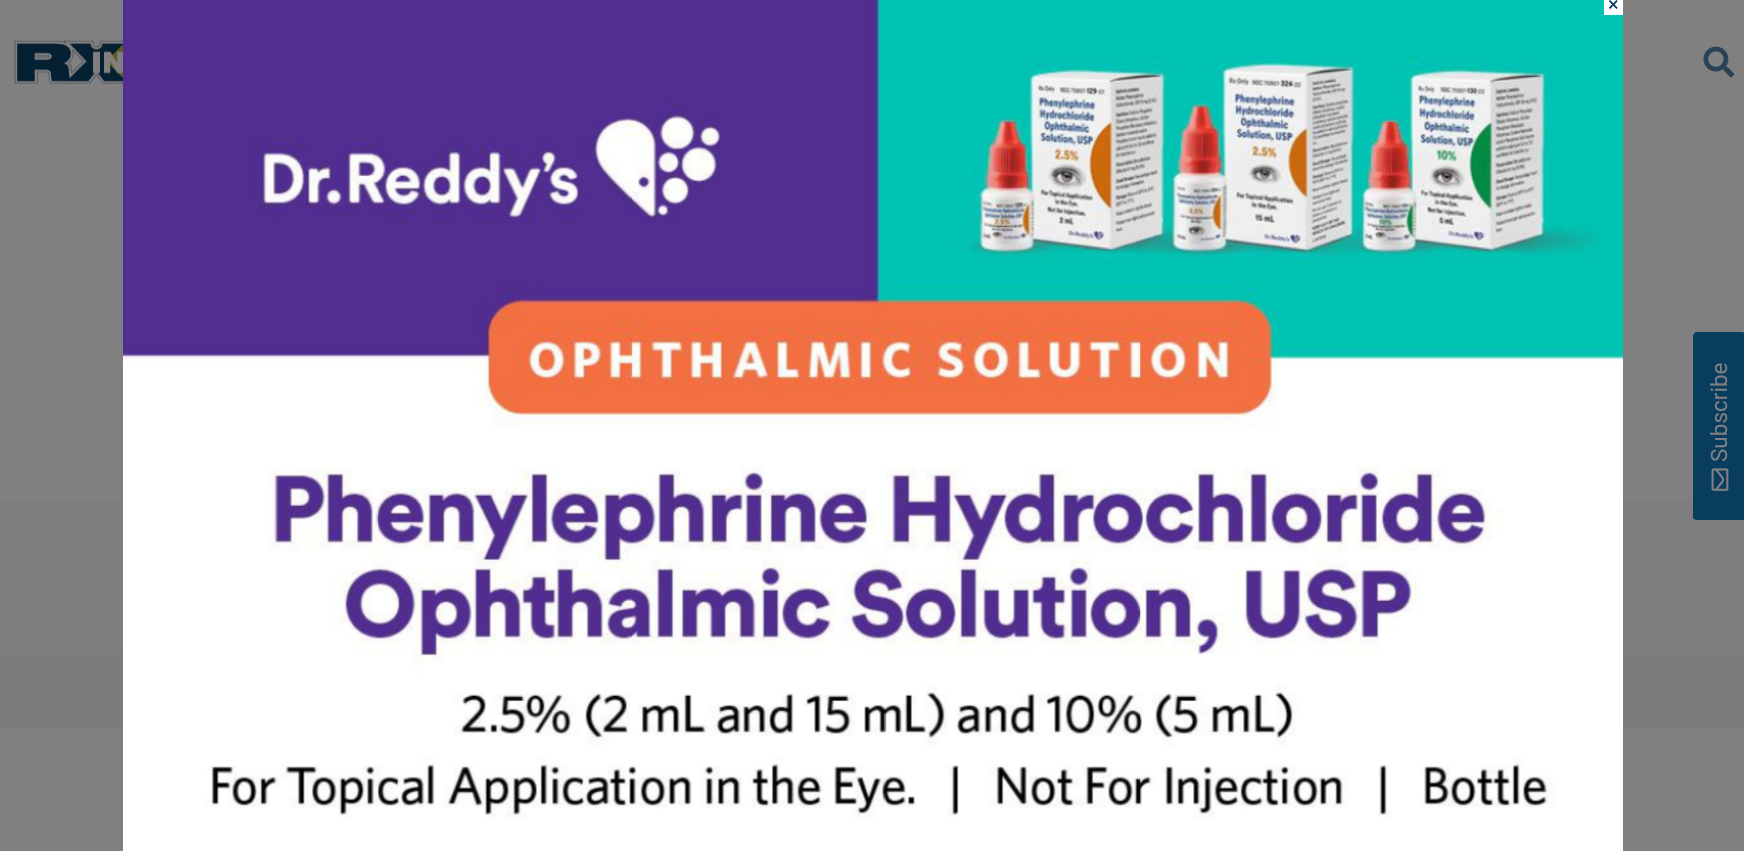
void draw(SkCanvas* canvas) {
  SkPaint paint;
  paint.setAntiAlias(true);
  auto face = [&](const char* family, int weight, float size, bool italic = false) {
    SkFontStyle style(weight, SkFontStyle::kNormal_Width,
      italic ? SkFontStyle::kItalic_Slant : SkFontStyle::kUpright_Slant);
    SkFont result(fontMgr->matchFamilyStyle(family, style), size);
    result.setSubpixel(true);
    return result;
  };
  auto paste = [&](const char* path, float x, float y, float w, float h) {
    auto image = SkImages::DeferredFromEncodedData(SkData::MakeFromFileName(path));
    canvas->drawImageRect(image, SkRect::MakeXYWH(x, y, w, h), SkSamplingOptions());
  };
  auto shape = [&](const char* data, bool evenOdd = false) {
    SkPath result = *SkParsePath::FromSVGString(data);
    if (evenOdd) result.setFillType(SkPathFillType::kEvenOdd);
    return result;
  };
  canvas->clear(0xff808080);
  {
    const SkColor colors[] = {0xff808080, 0xff7c7c7c};
    const float stops[] = {0, 1};
    const SkPoint ends[] = {{873, 125}, {873, 728}};
    paint.setShader(SkGradientShader::MakeLinear(ends, colors, stops, 2, SkTileMode::kClamp));
    paint.setAlpha(255);
  }
  canvas->drawRect(SkRect::MakeXYWH(0, 502, 1744, 226), paint);
  paste("img/1.png", 123, 0, 1500, 851);
  paint.setShader(nullptr);
  paint.setColor(0xffffffff);
  canvas->drawRect(SkRect::MakeXYWH(1604, 0, 19, 15), paint);
  paste("img/2.png", 14, 40, 109, 44);
  paste("img/3.png", 1703, 46, 32, 32);
  paint.setColor(0xff083d60);
  canvas->drawPath(shape("M1693 517V336C1693 334 1695 332 1697 332H1742C1744 332 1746 334 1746 336V517C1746 519 1744 520 1742 520H1697C1695 520 1693 519 1693 517Z"), paint);
  paste("img/4.png", 1711, 468, 18, 23);
  auto f0 = face("Roboto", 400, 20);
  paint.setColor(0xff0a3e64);
  canvas->drawString("×", 1608, 11, f0, paint);
  auto f1 = face("Roboto", 400, 22.5f);
  paint.setColor(0xff808080);
  canvas->save();
  canvas->rotate(-90, 1727, 462);
  canvas->drawString("Subscribe", 1727, 462, f1, paint);
  canvas->restore();
}
